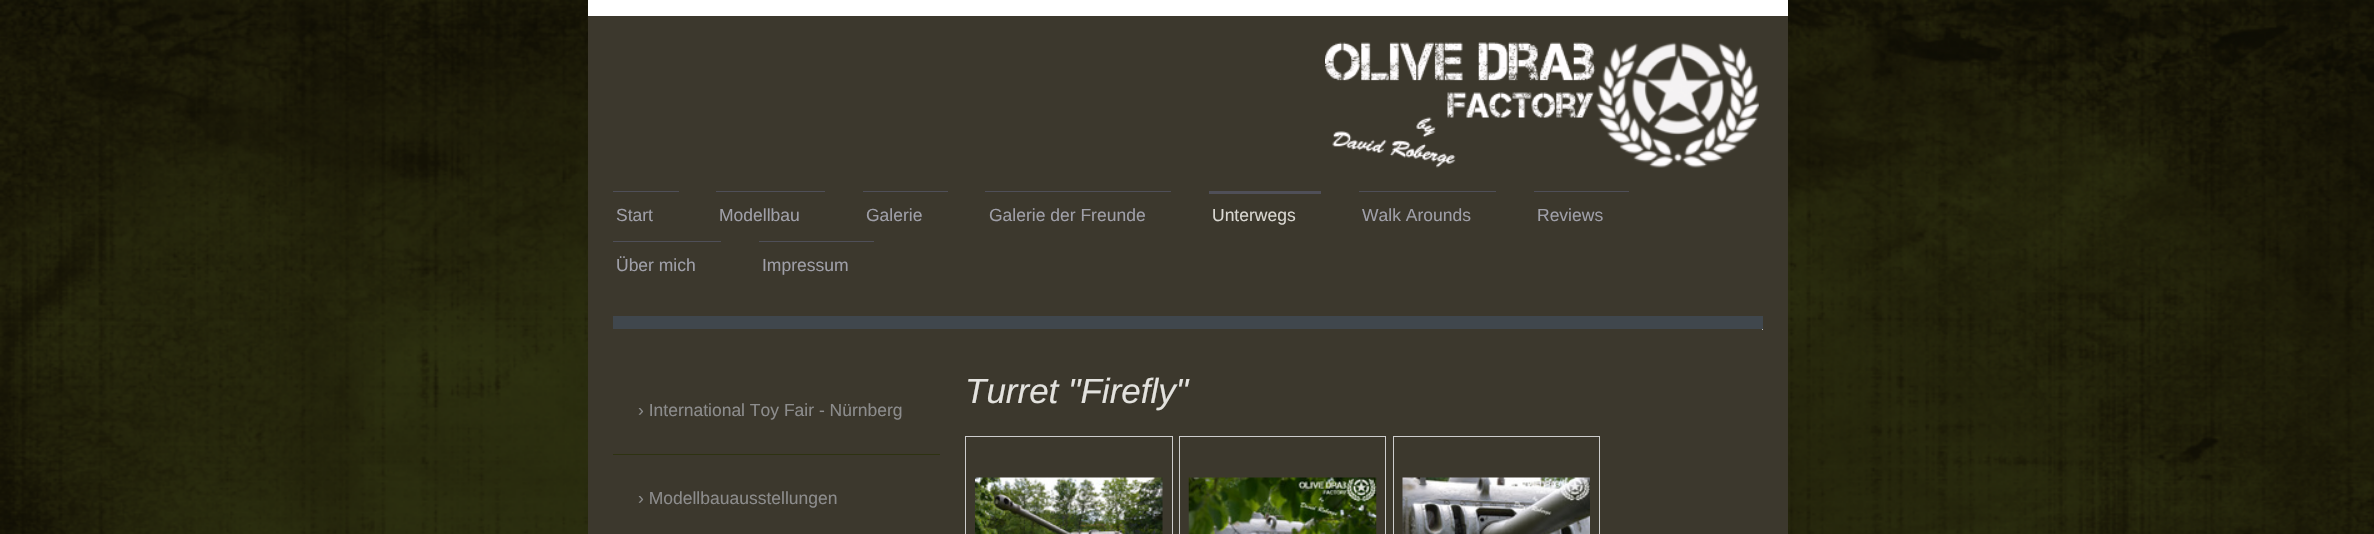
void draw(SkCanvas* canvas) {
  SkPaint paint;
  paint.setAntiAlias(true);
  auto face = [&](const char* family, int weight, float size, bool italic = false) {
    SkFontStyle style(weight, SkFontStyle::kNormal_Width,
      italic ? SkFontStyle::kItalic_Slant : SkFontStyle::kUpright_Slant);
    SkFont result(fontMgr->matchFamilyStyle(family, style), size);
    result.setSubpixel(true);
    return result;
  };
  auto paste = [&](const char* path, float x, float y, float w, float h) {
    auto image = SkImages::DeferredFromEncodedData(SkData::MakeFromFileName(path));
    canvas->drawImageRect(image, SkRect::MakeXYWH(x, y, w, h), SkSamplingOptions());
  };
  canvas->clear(0xffffffff);
  paste("img/1.png", 0, 0, 2374, 534);
  paint.setColor(0xff3c382d);
  canvas->drawRect(SkRect::MakeXYWH(588, 16, 1200, 518), paint);
  paint.setColor(0xffffffff);
  canvas->drawRect(SkRect::MakeXYWH(588, 0, 1200, 16), paint);
  paste("img/2.png", 1325, 42, 434, 126);
  {
    const struct { float x, y, w, h; SkColor color; } items[] = {
      {613, 191, 66, 1, 0xff4f4f58},
      {716, 191, 109, 1, 0xff4f4f58},
      {863, 191, 85, 1, 0xff4f4f58},
      {985, 191, 186, 1, 0xff4f4f58},
      {1209, 191, 112, 3, 0xff4f4f58},
      {1359, 191, 137, 1, 0xff4f4f58},
      {1534, 191, 95, 1, 0xff4f4f58},
      {613, 241, 108, 1, 0xff4f4f58},
      {759, 241, 115, 1, 0xff4f4f58},
      {613, 316, 1150, 13, 0xff40474d},
      {1762, 329, 1, 1, 0xffeeeeee},
    };
    for (auto [x, y, w, h, color] : items) {
      paint.setColor(color);
      canvas->drawRect(SkRect::MakeXYWH(x, y, w, h), paint);
    }
  }
  paste("img/3.png", 613, 329, 1150, 1);
  paint.setStroke(true);
  paint.setStrokeWidth(1);
  paint.setColor(0xffcccccc);
  canvas->drawRect(SkRect::MakeXYWH(965.5f, 436.5f, 207, 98), paint);
  paste("img/4.png", 975, 477, 188, 57);
  canvas->drawRect(SkRect::MakeXYWH(1179.5f, 436.5f, 206, 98), paint);
  paste("img/5.png", 1188, 477, 189, 57);
  canvas->drawRect(SkRect::MakeXYWH(1393.5f, 436.5f, 206, 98), paint);
  paste("img/6.png", 1402, 477, 188, 57);
  paint.setStroke(false);
  paint.setColor(0xff2e3211);
  canvas->drawRect(SkRect::MakeXYWH(613, 454, 327, 1), paint);
  auto f0 = face("Liberation Sans", 400, 17.5f);
  paint.setColor(0xff9f9fa8);
  {
    const struct { const char* s; float x, y; } items[] = {
      {"Start", 616, 221},
      {"Modellbau", 719, 221},
      {"Galerie", 866, 221},
      {"Galerie der Freunde", 989, 221},
    };
    for (auto [s, x, y] : items) {
      canvas->drawString(s, x, y, f0, paint);
    }
  }
  paint.setColor(0xffd9d7d1);
  canvas->drawString("Unterwegs", 1212, 221, f0, paint);
  paint.setColor(0xff9f9fa8);
  {
    const struct { const char* s; float x, y; } items[] = {
      {"Walk Arounds", 1362, 221},
      {"Reviews", 1537, 221},
      {"Über mich", 616, 271},
      {"Impressum", 762, 271},
    };
    for (auto [s, x, y] : items) {
      canvas->drawString(s, x, y, f0, paint);
    }
  }
  auto f1 = face("Liberation Sans", 400, 35, true);
  paint.setColor(0xffe3e2de);
  canvas->drawString("Turret \"Firefly\"", 965, 403, f1, paint);
  paint.setColor(0xff8c8c8c);
  canvas->drawString("› International Toy Fair - Nürnberg", 638, 416, f0, paint);
  canvas->drawString("› Modellbauausstellungen", 638, 504, f0, paint);
}
